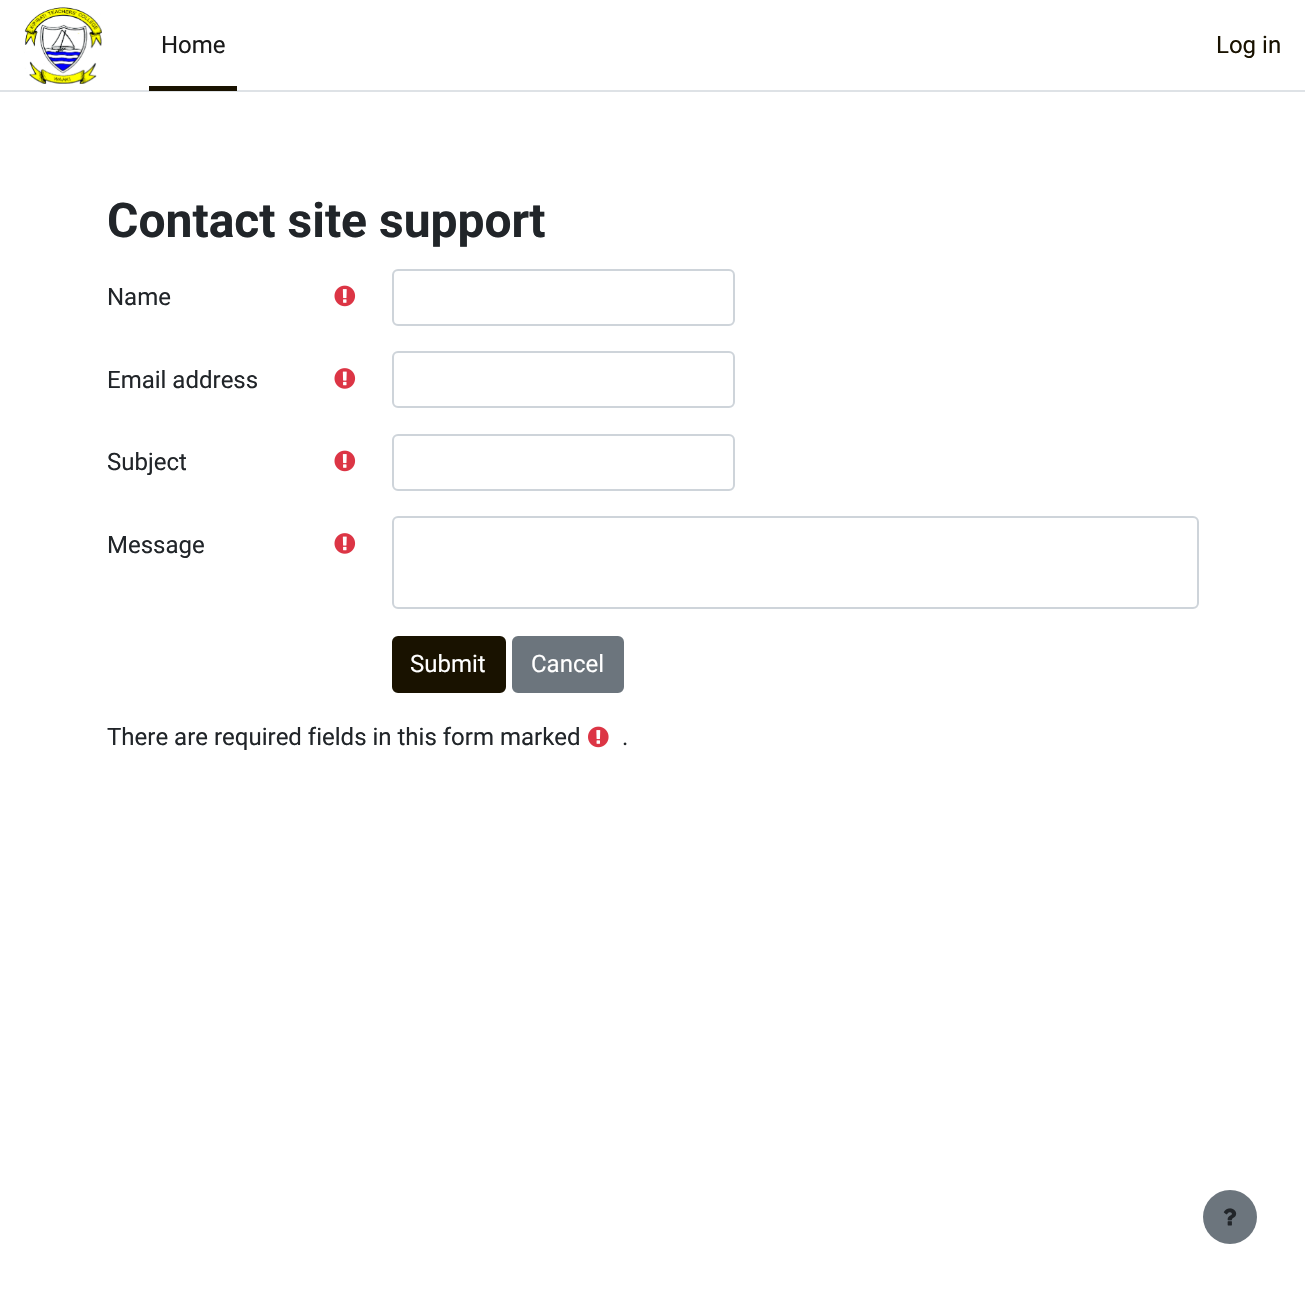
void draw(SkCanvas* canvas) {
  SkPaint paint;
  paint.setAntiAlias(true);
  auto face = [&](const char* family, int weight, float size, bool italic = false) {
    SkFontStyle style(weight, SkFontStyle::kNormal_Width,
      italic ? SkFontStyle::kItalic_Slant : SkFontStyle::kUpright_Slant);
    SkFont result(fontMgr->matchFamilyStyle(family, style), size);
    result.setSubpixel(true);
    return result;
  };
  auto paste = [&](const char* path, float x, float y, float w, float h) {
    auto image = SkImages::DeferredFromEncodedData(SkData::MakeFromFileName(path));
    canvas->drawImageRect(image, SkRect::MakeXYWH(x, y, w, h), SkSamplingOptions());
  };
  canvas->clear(0xffffffff);
  paint.setColor(0xffdee2e6);
  canvas->drawRect(SkRect::MakeXYWH(0, 90, 1305, 2), paint);
  paste("img/1.png", 24, 7, 78, 77);
  paint.setColor(0xff191200);
  canvas->drawRect(SkRect::MakeXYWH(149, 86, 88, 5), paint);
  paste("img/2.png", 334, 285, 22, 22);
  paint.setStroke(true);
  paint.setStrokeWidth(2);
  paint.setColor(0xffced4da);
  canvas->drawRoundRect(SkRect::MakeXYWH(393, 270, 341, 55), 5, 5, paint);
  paste("img/3.png", 334, 368, 22, 21);
  canvas->drawRoundRect(SkRect::MakeXYWH(393, 352, 341, 55), 5, 5, paint);
  paste("img/2.png", 334, 450, 22, 22);
  canvas->drawRoundRect(SkRect::MakeXYWH(393, 435, 341, 55), 5, 5, paint);
  paste("img/3.png", 334, 533, 22, 21);
  canvas->drawRoundRect(SkRect::MakeXYWH(393, 517, 805, 91), 5, 5, paint);
  paint.setStroke(false);
  paint.setColor(0xff191200);
  canvas->drawRoundRect(SkRect::MakeXYWH(393, 637, 112, 55), 5, 5, paint);
  paint.setStroke(true);
  canvas->drawRoundRect(SkRect::MakeXYWH(393, 637, 112, 55), 5, 5, paint);
  paint.setStroke(false);
  paint.setColor(0xff6c757d);
  canvas->drawRoundRect(SkRect::MakeXYWH(513, 637, 110, 55), 5, 5, paint);
  paint.setStroke(true);
  canvas->drawRoundRect(SkRect::MakeXYWH(513, 637, 110, 55), 5, 5, paint);
  paste("img/4.png", 588, 726, 21, 22);
  paint.setStroke(false);
  canvas->drawCircle(1230, 1217, 27, paint);
  paste("img/5.png", 1223, 1208, 14, 18);
  auto f0 = face("Roboto", 400, 24);
  paint.setColor(0xff1a1a1a);
  canvas->drawString("Home", 161, 53, f0, paint);
  paint.setColor(0xff191200);
  canvas->drawString("Log in", 1216, 53, f0, paint);
  auto f1 = face("Roboto", 700, 48);
  paint.setColor(0xff212529);
  canvas->drawString("Contact site support", 107, 237, f1, paint);
  {
    const struct { const char* s; float x, y; } items[] = {
      {"Name", 107, 305},
      {"Email address", 107, 388},
      {"Subject", 107, 470},
      {"Message", 107, 553},
    };
    for (auto [s, x, y] : items) {
      canvas->drawString(s, x, y, f0, paint);
    }
  }
  paint.setColor(0xffffffff);
  canvas->drawString("Submit", 410, 672, f0, paint);
  canvas->drawString("Cancel", 531, 672, f0, paint);
  paint.setColor(0xff212529);
  canvas->drawString("There are required fields in this form marked", 107, 745, f0, paint);
  canvas->drawString(".", 622, 745, f0, paint);
}
